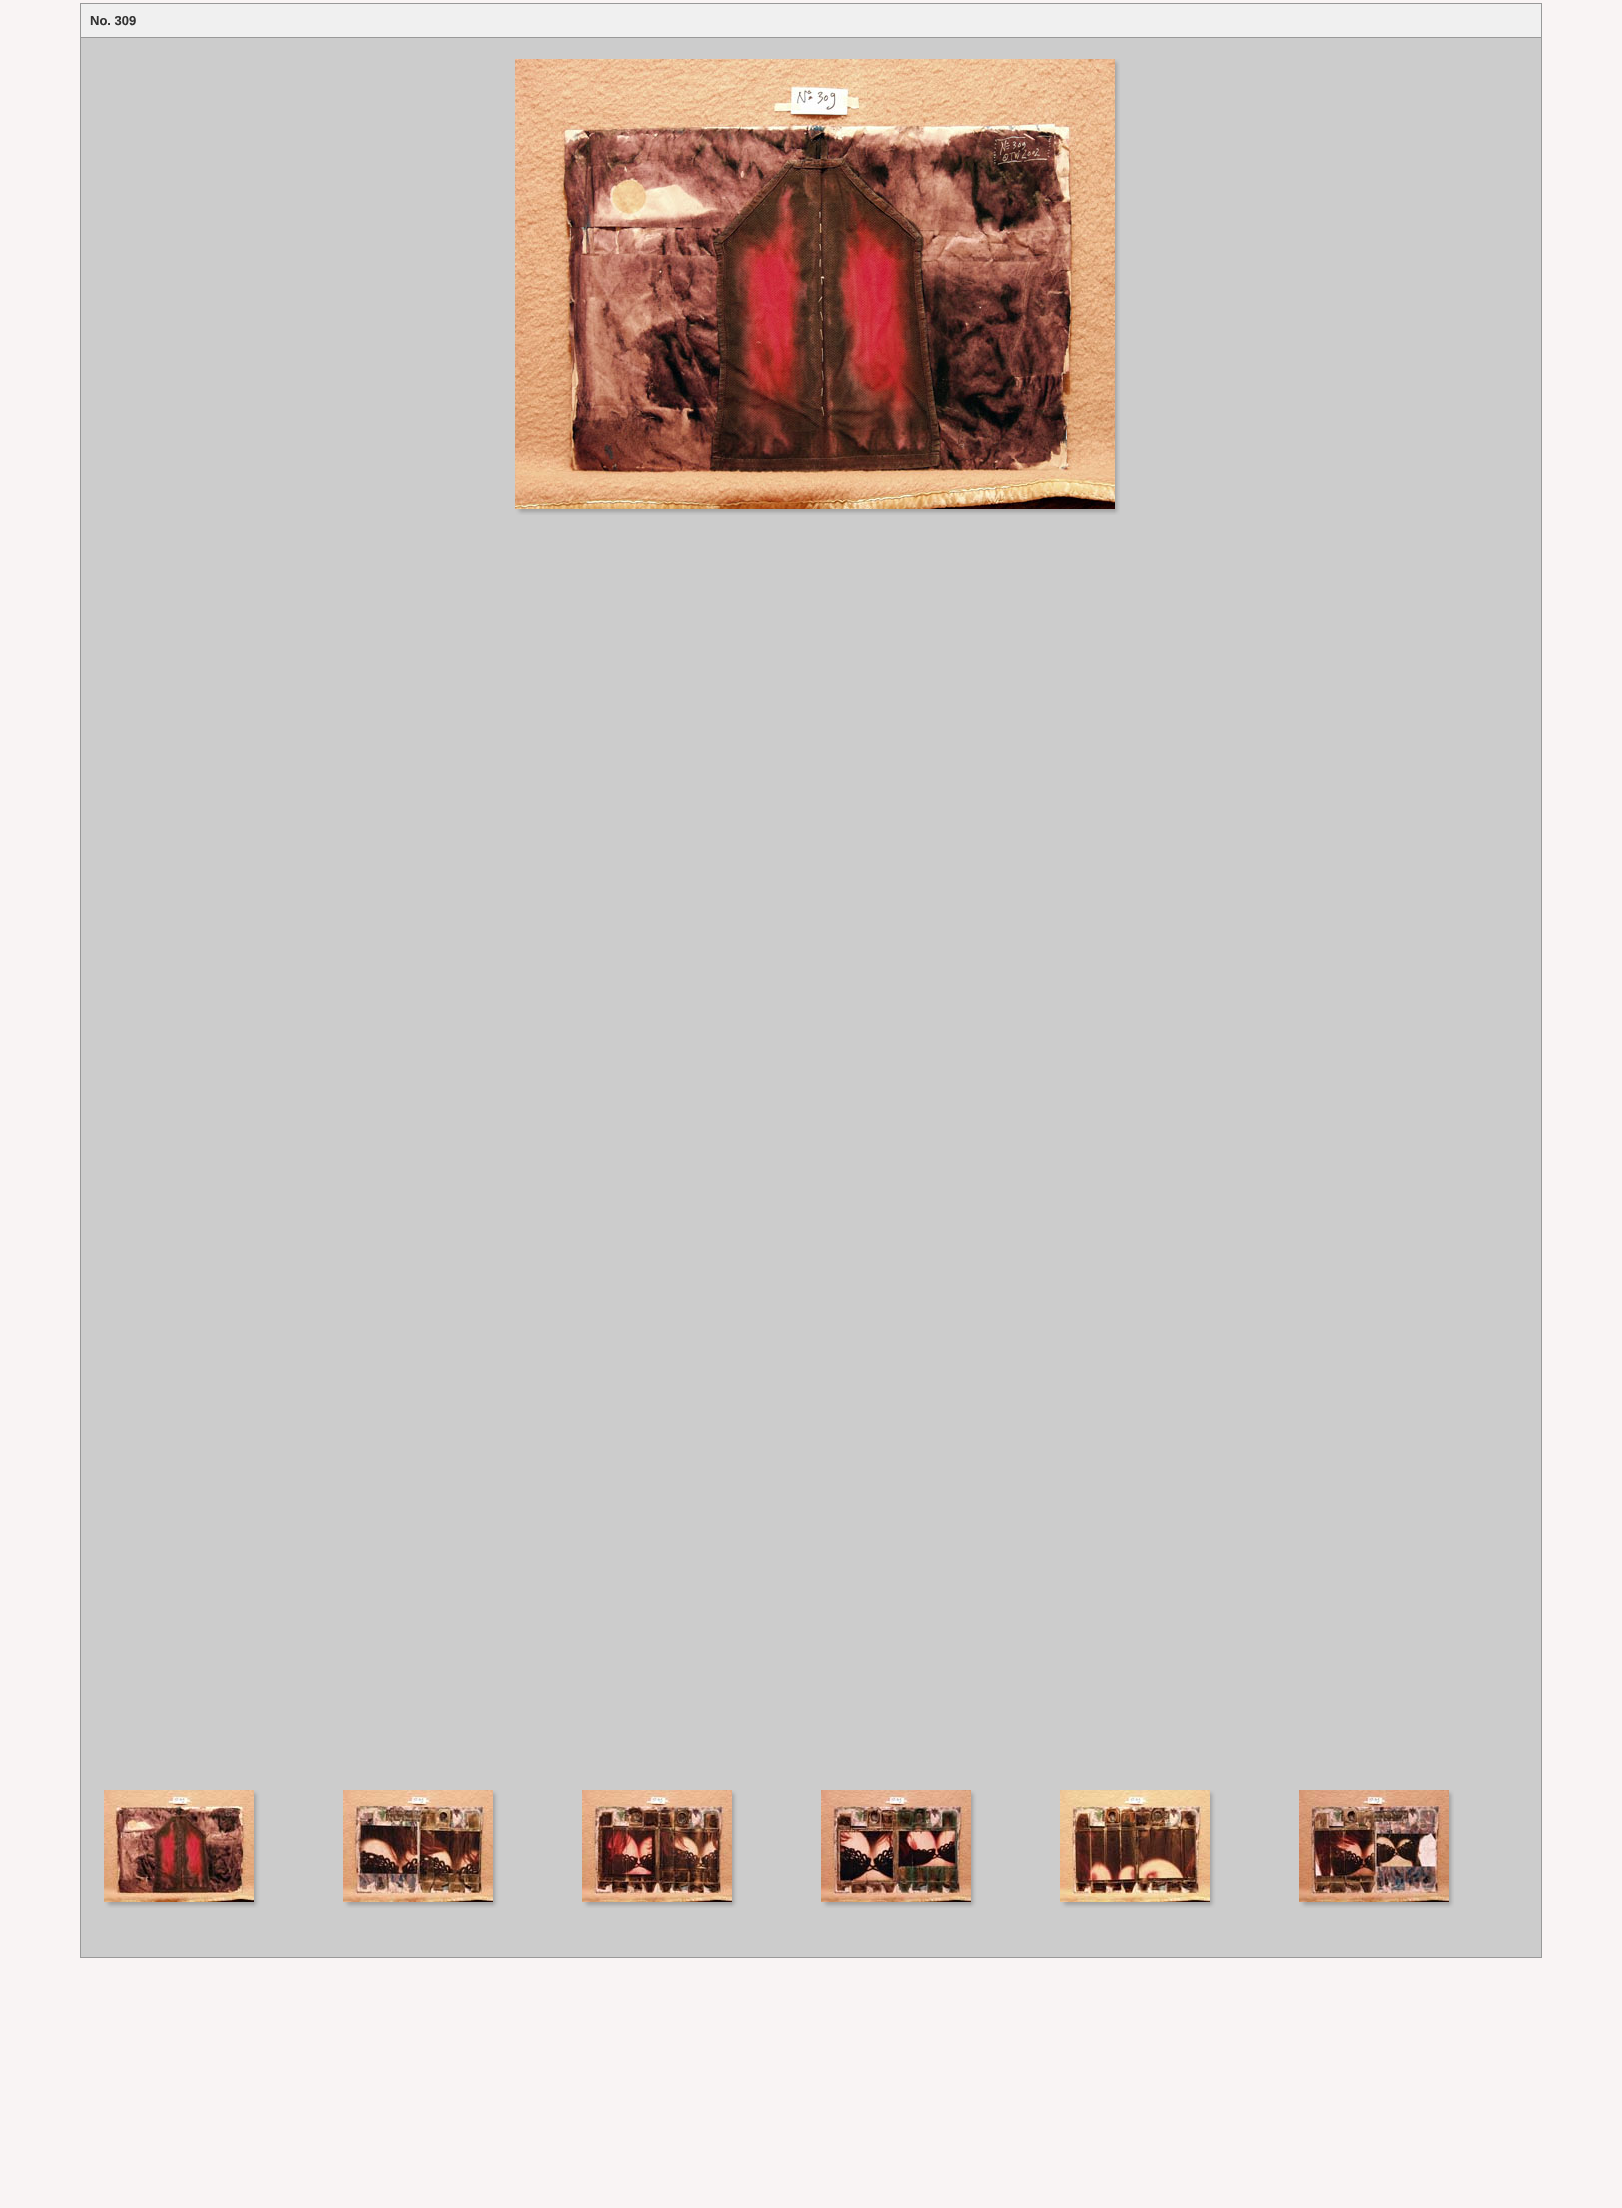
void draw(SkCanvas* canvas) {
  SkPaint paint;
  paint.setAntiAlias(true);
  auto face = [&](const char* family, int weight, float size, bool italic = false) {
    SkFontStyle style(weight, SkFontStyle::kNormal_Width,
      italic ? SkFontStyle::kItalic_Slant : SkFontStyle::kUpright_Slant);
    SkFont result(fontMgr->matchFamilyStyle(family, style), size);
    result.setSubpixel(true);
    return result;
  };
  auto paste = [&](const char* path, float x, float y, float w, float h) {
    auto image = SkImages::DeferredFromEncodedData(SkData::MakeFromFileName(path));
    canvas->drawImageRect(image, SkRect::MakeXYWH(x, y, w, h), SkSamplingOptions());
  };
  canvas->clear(0xfff9f4f4);
  paint.setStroke(true);
  paint.setStrokeWidth(1);
  paint.setColor(0xff999999);
  canvas->drawRect(SkRect::MakeXYWH(80.5f, 3.5f, 1461, 1954), paint);
  paint.setStroke(false);
  {
    const struct { float x, y, w, h; SkColor color; } items[] = {
      {81, 38, 1460, 1919, 0xffcccccc},
      {81, 4, 1460, 33, 0xfff0f0f0},
      {81, 37, 1460, 1, 0xff999999},
    };
    for (auto [x, y, w, h, color] : items) {
      paint.setColor(color);
      canvas->drawRect(SkRect::MakeXYWH(x, y, w, h), paint);
    }
  }
  paste("img/1.png", 515, 59, 605, 456);
  paste("img/2.png", 104, 1790, 1350, 118);
  auto f0 = face("Liberation Sans", 700, 13);
  paint.setColor(0xff333333);
  canvas->drawString("No. 309", 90, 25, f0, paint);
}
